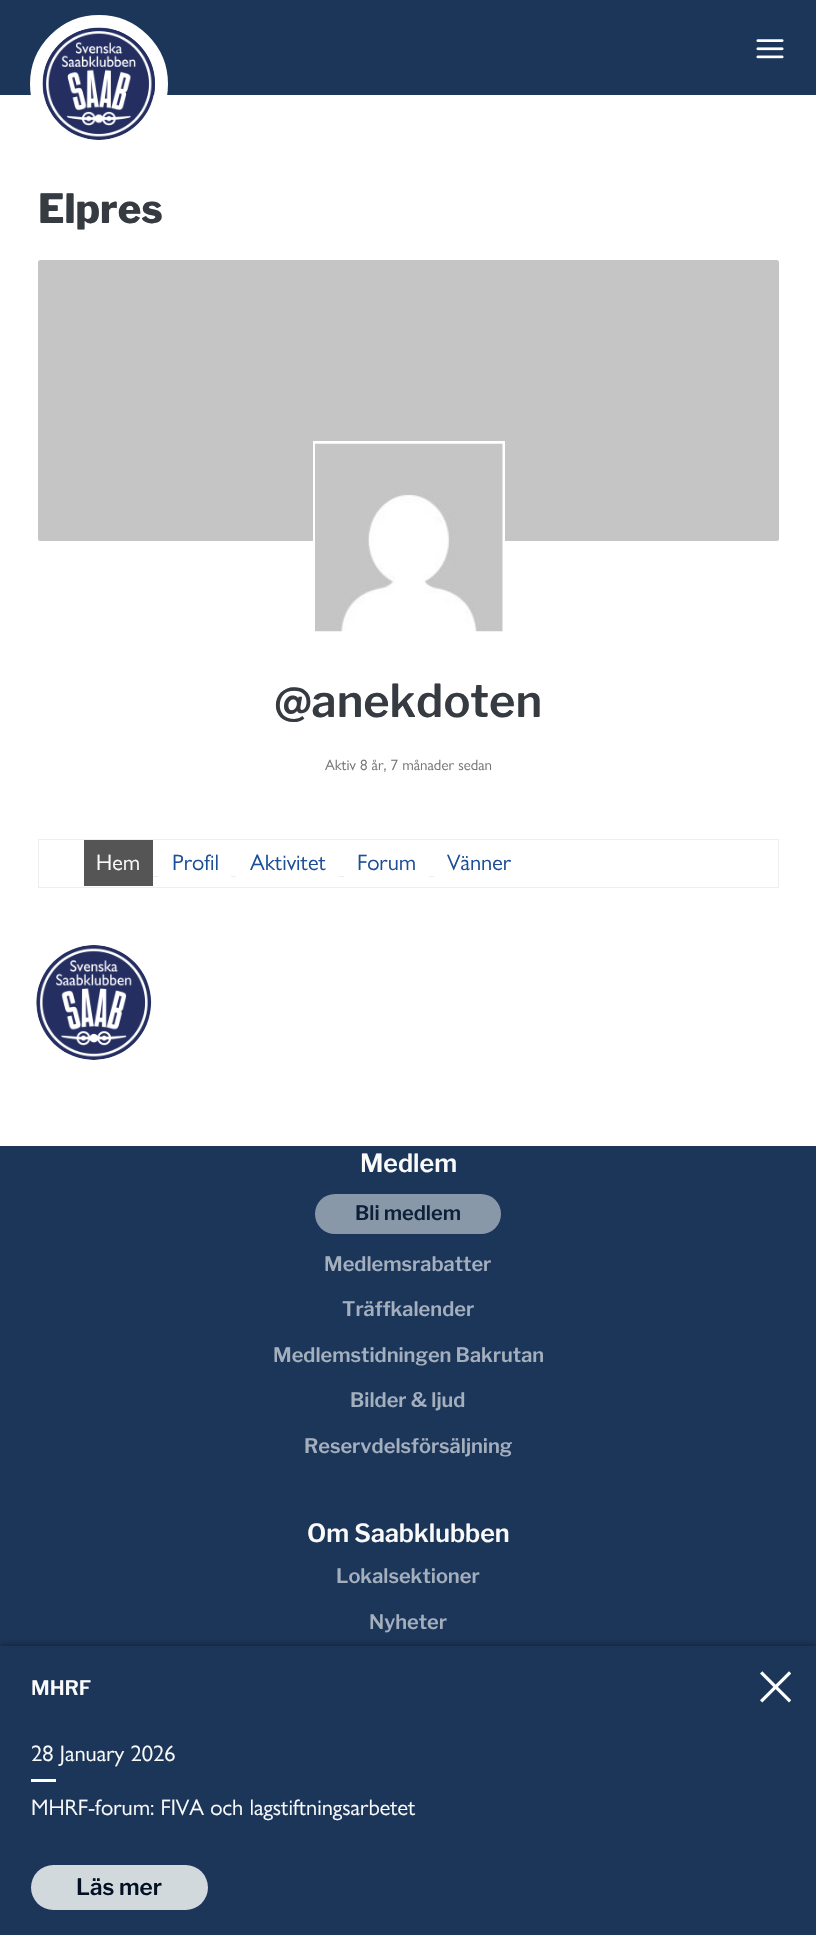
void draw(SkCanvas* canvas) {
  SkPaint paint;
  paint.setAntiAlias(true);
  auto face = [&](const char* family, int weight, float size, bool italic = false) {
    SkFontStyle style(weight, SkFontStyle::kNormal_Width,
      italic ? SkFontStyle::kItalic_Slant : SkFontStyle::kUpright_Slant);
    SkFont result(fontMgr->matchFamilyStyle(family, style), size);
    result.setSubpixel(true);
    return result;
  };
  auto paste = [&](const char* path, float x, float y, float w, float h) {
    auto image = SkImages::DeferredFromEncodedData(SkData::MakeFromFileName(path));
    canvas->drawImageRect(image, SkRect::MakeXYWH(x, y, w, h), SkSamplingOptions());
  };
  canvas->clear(0xffffffff);
  paint.setColor(0xff1c365a);
  canvas->drawRect(SkRect::MakeXYWH(0, 0, 816, 95), paint);
  paint.setStroke(true);
  paint.setStrokeWidth(13);
  paint.setColor(0xffffffff);
  canvas->drawCircle(99, 84, 62.5f, paint);
  paste("img/1.png", 42, 27, 113, 113);
  paste("img/2.png", 756, 39, 28, 20);
  paint.setStroke(false);
  paint.setColor(0xffc5c5c5);
  canvas->drawRoundRect(SkRect::MakeXYWH(38, 260, 741, 281), 2.5f, 2.5f, paint);
  paint.setStroke(true);
  paint.setStrokeWidth(3);
  paint.setColor(0xffffffff);
  canvas->drawRect(SkRect::MakeXYWH(314.5f, 442.5f, 189, 190), paint);
  paste("img/3.png", 315, 443, 188, 189);
  paint.setStrokeWidth(1);
  paint.setColor(0xffeeeeee);
  canvas->drawRect(SkRect::MakeXYWH(38.5f, 839.5f, 740, 48), paint);
  paint.setStroke(false);
  {
    const struct { float x, y, w, h; SkColor color; } items[] = {
      {153, 876, 5, 1, 0xffeeeeee},
      {84, 840, 69, 46, 0xff555555},
      {231, 876, 5, 1, 0xffeeeeee},
      {339, 876, 5, 1, 0xffeeeeee},
      {429, 876, 5, 1, 0xffeeeeee},
      {0, 1146, 816, 500, 0xff1c365a},
    };
    for (auto [x, y, w, h, color] : items) {
      paint.setColor(color);
      canvas->drawRect(SkRect::MakeXYWH(x, y, w, h), paint);
    }
  }
  paste("img/4.png", 36, 945, 116, 115);
  paint.setColor(0xff8998a9);
  canvas->drawRoundRect(SkRect::MakeXYWH(315, 1194, 186, 40), 20, 20, paint);
  paint.setColor(0x4d000000);
  paint.setMaskFilter(SkMaskFilter::MakeBlur(kNormal_SkBlurStyle, 3));
  canvas->drawRect(SkRect::MakeXYWH(0, 1644, 816, 289), paint);
  paint.setMaskFilter(nullptr);
  paint.setColor(0xff1c365a);
  canvas->drawRect(SkRect::MakeXYWH(0, 1646, 816, 289), paint);
  paint.setColor(0xffffffff);
  canvas->drawRect(SkRect::MakeXYWH(31, 1779, 25, 3), paint);
  paint.setColor(0xffd1d9dd);
  canvas->drawRoundRect(SkRect::MakeXYWH(31, 1865, 177, 45), 22.5f, 22.5f, paint);
  paste("img/5.png", 760, 1671, 31, 32);
  auto f0 = face("Libre Franklin", 800, 40);
  paint.setColor(0xff363b41);
  canvas->drawString("Elpres", 38, 223, f0, paint);
  auto f1 = face("Libre Franklin", 600, 45);
  canvas->drawString("@anekdoten", 274, 717, f1, paint);
  auto f2 = face("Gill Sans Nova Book", 400, 15);
  paint.setColor(0xff767676);
  canvas->drawString("Aktiv 8 år, 7 månader sedan", 325, 770, f2, paint);
  auto f3 = face("Gill Sans Nova Book", 400, 22.5f);
  paint.setColor(0xfffafafa);
  canvas->drawString("Hem", 96, 870, f3, paint);
  paint.setColor(0xff1c4f97);
  {
    const struct { const char* s; float x, y; } items[] = {
      {"Profil", 172, 870},
      {"Aktivitet", 250, 870},
      {"Forum", 357, 870},
      {"Vänner", 447, 870},
    };
    for (auto [s, x, y] : items) {
      canvas->drawString(s, x, y, f3, paint);
    }
  }
  auto f4 = face("Libre Franklin", 600, 25);
  paint.setColor(0xfffafafa);
  canvas->drawString("Medlem", 360, 1172, f4, paint);
  auto f5 = face("Libre Franklin", 600, 20);
  paint.setColor(0xff0d203a);
  canvas->drawString("Bli medlem", 355, 1220, f5, paint);
  paint.setColor(0xffa4afbd);
  {
    const struct { const char* s; float x, y; } items[] = {
      {"Medlemsrabatter", 324, 1271},
      {"Träffkalender", 342, 1316},
      {"Medlemstidningen Bakrutan", 273, 1362},
      {"Bilder & ljud", 350, 1407},
      {"Reservdelsförsäljning", 304, 1453},
    };
    for (auto [s, x, y] : items) {
      canvas->drawString(s, x, y, f5, paint);
    }
  }
  paint.setColor(0xfffafafa);
  canvas->drawString("Om Saabklubben", 307, 1542, f4, paint);
  paint.setColor(0xffa4afbd);
  canvas->drawString("Lokalsektioner", 336, 1583, f5, paint);
  canvas->drawString("Nyheter", 369, 1629, f5, paint);
  paint.setColor(0xfffafafa);
  canvas->drawString("MHRF", 31, 1695, f5, paint);
  canvas->drawString("28 January 2026", 31, 1761, f3, paint);
  canvas->drawString("MHRF-forum: FIVA och lagstiftningsarbetet", 31, 1815, f3, paint);
  auto f6 = face("Libre Franklin", 600, 22.5f);
  paint.setColor(0xff031124);
  canvas->drawString("Läs mer", 76, 1895, f6, paint);
}
